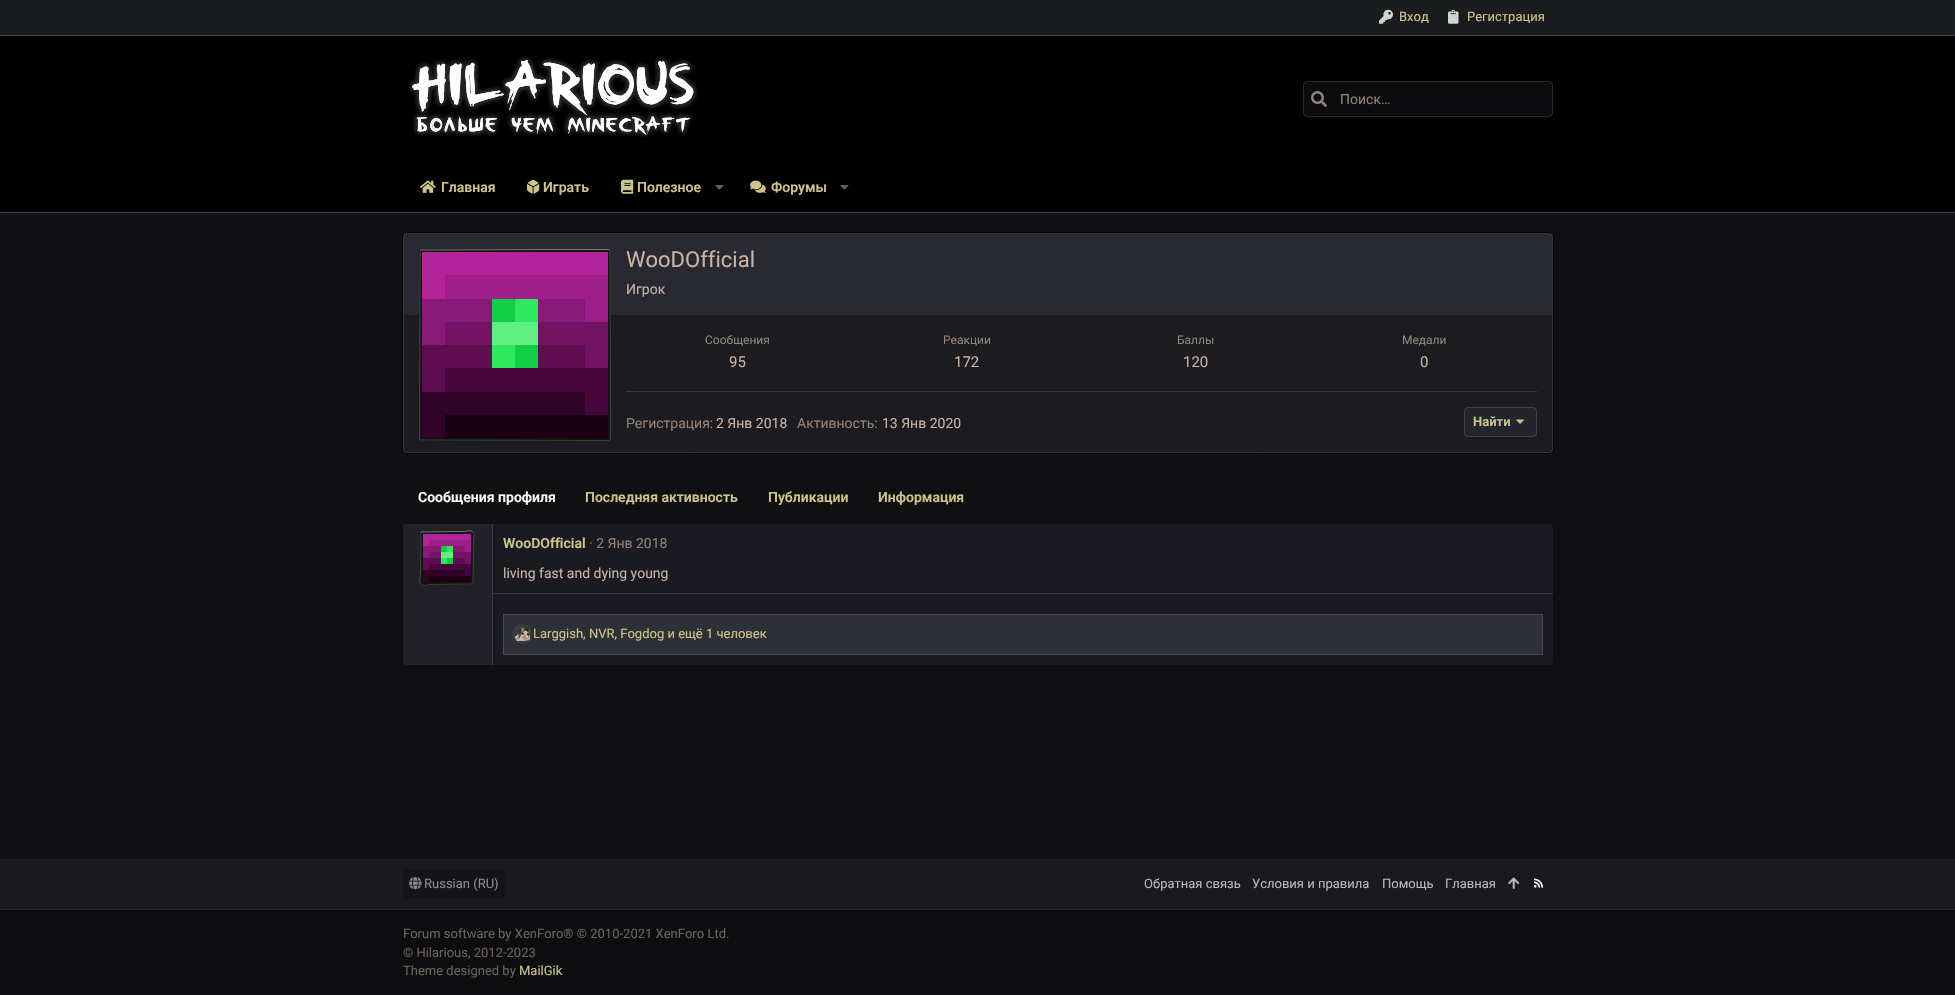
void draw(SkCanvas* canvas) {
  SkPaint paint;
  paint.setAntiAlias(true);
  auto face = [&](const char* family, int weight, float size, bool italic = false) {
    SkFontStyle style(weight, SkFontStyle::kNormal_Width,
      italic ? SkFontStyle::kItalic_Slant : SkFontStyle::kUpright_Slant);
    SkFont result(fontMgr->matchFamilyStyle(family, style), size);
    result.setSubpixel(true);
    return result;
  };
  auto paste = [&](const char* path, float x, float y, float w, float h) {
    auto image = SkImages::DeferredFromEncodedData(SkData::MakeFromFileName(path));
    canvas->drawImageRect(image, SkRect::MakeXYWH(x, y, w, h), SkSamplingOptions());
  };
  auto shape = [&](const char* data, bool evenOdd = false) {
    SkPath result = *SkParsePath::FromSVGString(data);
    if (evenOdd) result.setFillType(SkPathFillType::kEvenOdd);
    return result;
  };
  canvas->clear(0xff000000);
  paint.setColor(0xff1c1f1f);
  canvas->drawRect(SkRect::MakeXYWH(0, 0, 1955, 35), paint);
  paste("img/1.png", 1, 1, 1953, 33);
  paint.setColor(0xff374664);
  canvas->drawRect(SkRect::MakeXYWH(0, 35, 1955, 1), paint);
  paste("img/2.png", 1379, 9, 14, 15);
  paste("img/3.png", 1448, 9, 11, 15);
  paste("img/4.png", 408, 56, 290, 82);
  paint.setColor(0xff0c0c0f);
  canvas->drawRoundRect(SkRect::MakeXYWH(1302.5f, 80.5f, 251, 37), 4.5f, 4.5f, paint);
  paint.setStroke(true);
  paint.setStrokeWidth(1);
  paint.setColor(0xff000000);
  canvas->drawRoundRect(SkRect::MakeXYWH(1302.5f, 80.5f, 251, 37), 4.5f, 4.5f, paint);
  paint.setColor(0x1fffffff);
  canvas->drawRoundRect(SkRect::MakeXYWH(1303.5f, 81.5f, 249, 35), 3.5f, 3.5f, paint);
  paste("img/5.png", 1311, 91, 16, 16);
  paint.setStroke(false);
  paint.setColor(0xff374664);
  canvas->drawRect(SkRect::MakeXYWH(0, 212, 1955, 1), paint);
  paste("img/6.png", 420, 180, 16, 13);
  paste("img/7.png", 527, 179, 13, 15);
  paste("img/8.png", 621, 179, 13, 15);
  paste("img/9.png", 715, 185, 9, 5);
  paste("img/10.png", 750, 180, 16, 13);
  paste("img/9.png", 840, 185, 9, 5);
  paint.setColor(0xff101013);
  canvas->drawRect(SkRect::MakeXYWH(0, 213, 1955, 646), paint);
  paint.setStroke(true);
  paint.setColor(0xff000000);
  canvas->drawRoundRect(SkRect::MakeXYWH(402.5f, 232.5f, 1151, 221), 4.5f, 4.5f, paint);
  paint.setStroke(false);
  paint.setColor(0x1a787896);
  canvas->drawRoundRect(SkRect::MakeXYWH(403, 233, 1150, 220), 4, 4, paint);
  paint.setStroke(true);
  paint.setColor(0x1fffffff);
  canvas->drawRoundRect(SkRect::MakeXYWH(403.5f, 233.5f, 1149, 219), 3.5f, 3.5f, paint);
  paint.setStroke(false);
  paint.setColor(0x26787896);
  canvas->drawRect(SkRect::MakeXYWH(404, 234, 1148, 81), paint);
  paint.setColor(0xed111114);
  canvas->drawRoundRect(SkRect::MakeXYWH(419, 249, 192, 192), 2, 2, paint);
  paint.setStroke(true);
  paint.setColor(0xff7d7d6e);
  canvas->drawPath(shape("M420 250L577.5 249.5H609L610 250"), paint);
  paint.setColor(0xff46463c);
  canvas->drawPath(shape("M610 250L610.5 407.5V439L610 440"), paint);
  paint.setColor(0xff3c3c32);
  canvas->drawPath(shape("M610 440L609 440.5L420 440"), paint);
  paint.setColor(0xff46463c);
  canvas->drawPath(shape("M420 440L419.5 439L420 250"), paint);
  paste("img/11.png", 422, 252, 186, 186);
  paint.setStroke(false);
  paint.setColor(0xff36363b);
  canvas->drawRect(SkRect::MakeXYWH(626, 391, 911, 1), paint);
  paint.setColor(0xff24242c);
  canvas->drawRoundRect(SkRect::MakeXYWH(1464, 407, 73, 30), 4, 4, paint);
  paint.setStroke(true);
  paint.setColor(0x1fffffff);
  canvas->drawRoundRect(SkRect::MakeXYWH(1464.5f, 407.5f, 72, 29), 3.5f, 3.5f, paint);
  paste("img/12.png", 1516, 419, 8, 5);
  paint.setStroke(false);
  paint.setColor(0xff1a1a20);
  canvas->drawRoundRect(SkRect::MakeXYWH(403, 524, 1150, 141), 4, 4, paint);
  paint.setColor(0x2642464d);
  canvas->drawPath(shape("M406 524H493V665H406C404.5 665 403 663.5 403 662V527C403 525.5 404.5 524 406 524Z"), paint);
  paint.setColor(0xff3b3b41);
  canvas->drawRect(SkRect::MakeXYWH(492, 524, 1, 141), paint);
  paint.setColor(0xff121215);
  canvas->drawRoundRect(SkRect::MakeXYWH(420, 531, 54, 54), 2, 2, paint);
  paint.setStroke(true);
  paint.setColor(0xff7d7d6e);
  canvas->drawPath(shape("M421 532L463.5 531.5C467 531.5 471 529.5 473 532"), paint);
  paint.setColor(0xff46463c);
  canvas->drawPath(shape("M473 532C475.5 534 473.5 538 473.5 541.5L473 584"), paint);
  paint.setColor(0xff3c3c32);
  canvas->drawPath(shape("M473 584L430.5 584.5C427 584.5 423 586.5 421 584"), paint);
  paint.setColor(0xff46463c);
  canvas->drawPath(shape("M421 584C418.5 582 420.5 578 420.5 574.5L421 532"), paint);
  paste("img/13.png", 423, 534, 48, 48);
  paint.setStroke(false);
  paint.setColor(0xff35353b);
  canvas->drawRect(SkRect::MakeXYWH(493, 593, 1060, 1), paint);
  paint.setColor(0xff2e3037);
  canvas->drawRect(SkRect::MakeXYWH(503.5f, 614.5f, 1039, 40), paint);
  paint.setStroke(true);
  paint.setColor(0xff47494f);
  canvas->drawRect(SkRect::MakeXYWH(503.5f, 614.5f, 1039, 40), paint);
  paint.setStroke(false);
  paint.setColor(0xff383b42);
  canvas->drawCircle(522, 634, 10, paint);
  paste("img/14.png", 515, 626, 15, 15);
  paint.setColor(0xff19191e);
  canvas->drawRect(SkRect::MakeXYWH(0, 859, 1955, 50), paint);
  paint.setColor(0xff141418);
  canvas->drawRoundRect(SkRect::MakeXYWH(403, 869, 102, 30), 4, 4, paint);
  paste("img/15.png", 409, 876, 13, 14);
  paste("img/16.png", 1508, 877, 12, 12);
  paste("img/17.png", 1534, 878, 10, 10);
  paint.setColor(0xff0d0d10);
  canvas->drawRect(SkRect::MakeXYWH(0, 910, 1955, 85), paint);
  paint.setColor(0xff2a2a2d);
  canvas->drawRect(SkRect::MakeXYWH(0, 909, 1955, 1), paint);
  auto f0 = face("Roboto", 400, 13);
  paint.setColor(0xffccc48a);
  canvas->drawString("Вход", 1399, 21, f0, paint);
  canvas->drawString("Регистрация", 1467, 21, f0, paint);
  auto f1 = face("Roboto", 400, 14);
  paint.setColor(0xff908278);
  canvas->drawString("Поиск…", 1340, 104, f1, paint);
  auto f2 = face("Roboto", 600, 14);
  paint.setColor(0xffccc48a);
  {
    const struct { const char* s; float x, y; } items[] = {
      {"Главная", 441, 192},
      {"Играть", 543, 192},
      {"Полезное", 637, 192},
      {"Форумы", 771, 192},
    };
    for (auto [s, x, y] : items) {
      canvas->drawString(s, x, y, f2, paint);
    }
  }
  auto f3 = face("Roboto", 400, 22);
  paint.setColor(0xffc8b4a5);
  canvas->drawString("WooDOfficial", 626, 267, f3, paint);
  canvas->drawString("Игрок", 626, 294, f1, paint);
  auto f4 = face("Roboto", 400, 12);
  paint.setColor(0xff908278);
  canvas->drawString("Сообщения", 705, 344, f4, paint);
  auto f5 = face("Roboto", 400, 15);
  paint.setColor(0xffc8b4a5);
  canvas->drawString("95", 729, 367, f5, paint);
  paint.setColor(0xff908278);
  canvas->drawString("Реакции", 943, 344, f4, paint);
  paint.setColor(0xffc8b4a5);
  canvas->drawString("172", 954, 367, f5, paint);
  paint.setColor(0xff908278);
  canvas->drawString("Баллы", 1177, 344, f4, paint);
  paint.setColor(0xffc8b4a5);
  canvas->drawString("120", 1183, 367, f5, paint);
  paint.setColor(0xff908278);
  canvas->drawString("Медали", 1402, 344, f4, paint);
  paint.setColor(0xffc8b4a5);
  canvas->drawString("0", 1420, 367, f5, paint);
  paint.setColor(0xff908278);
  canvas->drawString("Регистрация:", 626, 428, f1, paint);
  paint.setColor(0xffc8b4a5);
  canvas->drawString("2 Янв 2018", 716, 428, f1, paint);
  paint.setColor(0xff908278);
  canvas->drawString("Активность:", 797, 428, f1, paint);
  paint.setColor(0xffc8b4a5);
  canvas->drawString("13 Янв 2020", 882, 428, f1, paint);
  auto f6 = face("Roboto", 600, 13);
  paint.setColor(0xffccc48a);
  canvas->drawString("Найти", 1473, 426, f6, paint);
  paint.setColor(0xffffffff);
  canvas->drawString("Сообщения профиля", 418, 502, f2, paint);
  paint.setColor(0xffccc48a);
  {
    const struct { const char* s; float x, y; } items[] = {
      {"Последняя активность", 585, 502},
      {"Публикации", 768, 502},
      {"Информация", 878, 502},
      {"WooDOfficial", 503, 548},
    };
    for (auto [s, x, y] : items) {
      canvas->drawString(s, x, y, f2, paint);
    }
  }
  paint.setColor(0xff908278);
  canvas->drawString("· 2 Янв 2018", 589, 548, f1, paint);
  paint.setColor(0xffc8b4a5);
  canvas->drawString("living fast and dying young", 503, 578, f1, paint);
  paint.setColor(0xffccc48a);
  canvas->drawString("Larggish, NVR, Fogdog и ещё 1 человек", 533, 638, f0, paint);
  paint.setColor(0xff8a8a8c);
  canvas->drawString("Russian (RU)", 424, 888, f0, paint);
  paint.setColor(0xffbababc);
  {
    const struct { const char* s; float x, y; } items[] = {
      {"Обратная связь", 1144, 888},
      {"Условия и правила", 1252, 888},
      {"Помощь", 1382, 888},
      {"Главная", 1445, 888},
    };
    for (auto [s, x, y] : items) {
      canvas->drawString(s, x, y, f0, paint);
    }
  }
  paint.setColor(0xff6b615b);
  {
    const struct { const char* s; float x, y; } items[] = {
      {"Forum software by XenForo® © 2010-2021 XenForo Ltd.", 403, 938},
      {"© Hilarious, 2012-2023", 403, 957},
      {"Theme designed by", 403, 975},
    };
    for (auto [s, x, y] : items) {
      canvas->drawString(s, x, y, f0, paint);
    }
  }
  paint.setColor(0xffccc48a);
  canvas->drawString("MailGik", 519, 975, f0, paint);
}
